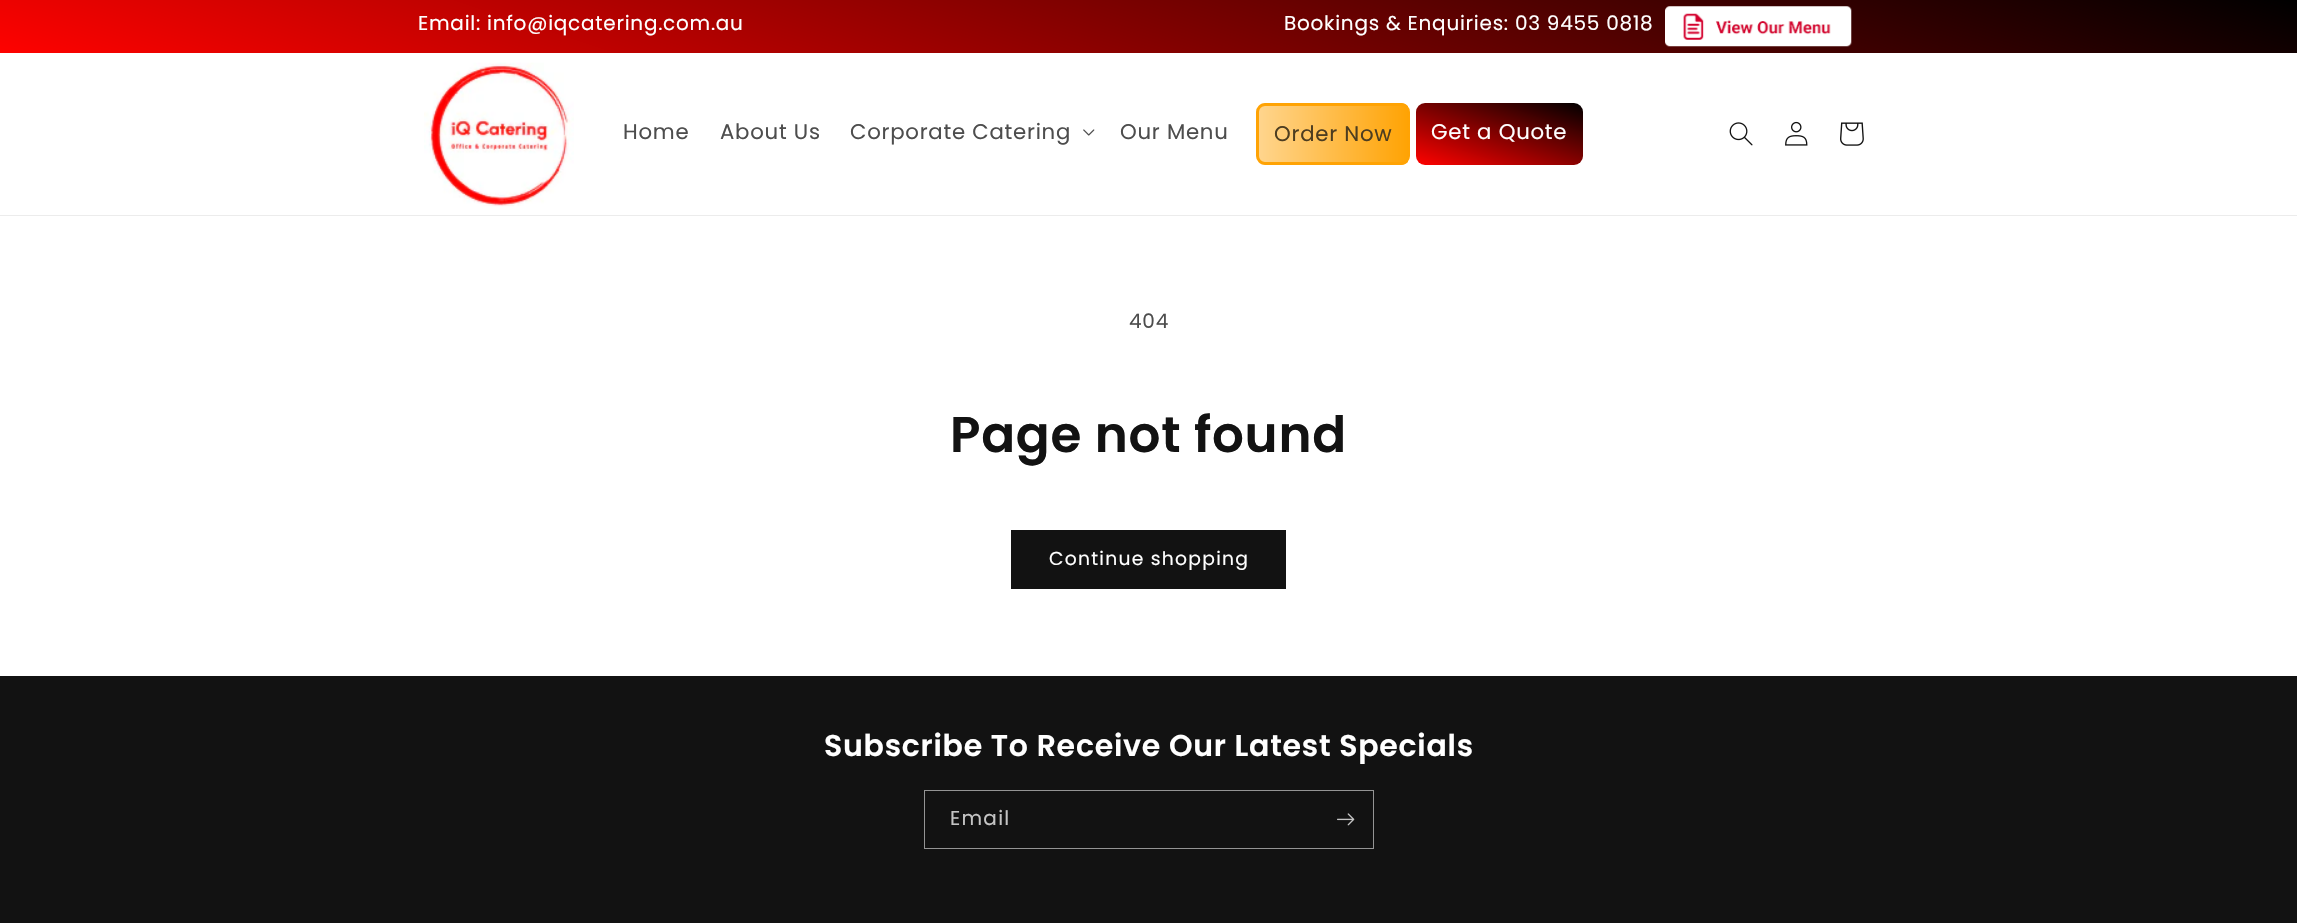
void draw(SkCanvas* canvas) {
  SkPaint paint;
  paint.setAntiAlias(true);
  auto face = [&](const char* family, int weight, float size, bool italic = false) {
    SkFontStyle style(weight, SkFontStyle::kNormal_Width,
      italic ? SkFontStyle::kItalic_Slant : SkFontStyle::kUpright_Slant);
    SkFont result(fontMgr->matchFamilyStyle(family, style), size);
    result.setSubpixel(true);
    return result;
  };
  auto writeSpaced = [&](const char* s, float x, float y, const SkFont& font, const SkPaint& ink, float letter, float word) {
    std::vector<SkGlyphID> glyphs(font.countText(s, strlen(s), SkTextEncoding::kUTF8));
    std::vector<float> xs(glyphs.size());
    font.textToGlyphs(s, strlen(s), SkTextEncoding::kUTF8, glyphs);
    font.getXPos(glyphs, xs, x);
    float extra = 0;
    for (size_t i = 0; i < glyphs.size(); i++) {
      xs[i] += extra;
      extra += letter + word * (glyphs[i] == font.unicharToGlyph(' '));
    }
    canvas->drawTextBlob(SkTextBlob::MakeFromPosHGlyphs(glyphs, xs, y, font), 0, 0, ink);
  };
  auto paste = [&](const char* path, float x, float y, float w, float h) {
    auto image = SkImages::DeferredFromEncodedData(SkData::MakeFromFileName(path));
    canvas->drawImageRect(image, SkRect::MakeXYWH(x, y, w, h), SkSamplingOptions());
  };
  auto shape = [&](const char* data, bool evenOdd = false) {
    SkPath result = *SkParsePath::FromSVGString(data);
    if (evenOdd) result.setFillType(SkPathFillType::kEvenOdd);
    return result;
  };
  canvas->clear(0xffffffff);
  {
    const SkColor colors[] = {0xfffe0200, 0xff000000};
    const float stops[] = {0, 1};
    const SkPoint ends[] = {{1031, 388}, {1266, -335}};
    paint.setShader(SkGradientShader::MakeLinear(ends, colors, stops, 2, SkTileMode::kClamp));
    paint.setAlpha(255);
  }
  canvas->drawRect(SkRect::MakeXYWH(0, 0, 2297, 53), paint);
  paste("img/1.png", 1665, 6, 187, 41);
  paint.setShader(nullptr);
  paint.setColor(0xffececec);
  canvas->drawRect(SkRect::MakeXYWH(0, 215, 2297, 1), paint);
  paste("img/2.png", 424, 62, 150, 145);
  paste("img/3.png", 1083, 129, 12, 7);
  canvas->save();
  canvas->clipPath(shape("M1265 103H1401C1406 103 1410 107 1410 112V156C1410 161 1406 165 1401 165H1265C1260 165 1256 161 1256 156V112C1256 107 1260 103 1265 103Z"), true);
  {
    const SkColor colors[] = {0xffffa304, 0xffffd58d};
    const float stops[] = {0, 1};
    const SkPoint ends[] = {{1408, 134}, {1259, 134}};
    paint.setShader(SkGradientShader::MakeLinear(ends, colors, stops, 2, SkTileMode::kClamp));
    paint.setAlpha(255);
  }
  canvas->drawRect(SkRect::MakeXYWH(1259, 103, 149, 62), paint);
  canvas->restore();
  paint.setStroke(true);
  paint.setStrokeWidth(3);
  paint.setShader(nullptr);
  paint.setColor(0xffffa304);
  canvas->drawRoundRect(SkRect::MakeXYWH(1257.5f, 104.5f, 151, 59), 7.5f, 7.5f, paint);
  paint.setStroke(false);
  {
    const SkColor colors[] = {0xfffe0200, 0xff000000};
    const float stops[] = {0, 1};
    const SkPoint ends[] = {{1482, 186}, {1516, 81}};
    paint.setShader(SkGradientShader::MakeLinear(ends, colors, stops, 2, SkTileMode::kClamp));
    paint.setAlpha(255);
  }
  canvas->drawRoundRect(SkRect::MakeXYWH(1416, 103, 167, 62), 9, 9, paint);
  paste("img/4.png", 1729, 122, 24, 24);
  paste("img/5.png", 1785, 121, 23, 25);
  paste("img/6.png", 1840, 122, 24, 24);
  paint.setShader(nullptr);
  paint.setColor(0xff121212);
  canvas->drawRect(SkRect::MakeXYWH(1011, 530, 275, 59), paint);
  canvas->drawRect(SkRect::MakeXYWH(0, 676, 2297, 247), paint);
  paint.setStroke(true);
  paint.setStrokeWidth(1);
  paint.setColor(0xff949494);
  canvas->drawRect(SkRect::MakeXYWH(924.5f, 790.5f, 449, 58), paint);
  paste("img/7.png", 1337, 813, 18, 13);
  auto f0 = face("Poppins", 400, 20);
  paint.setStroke(false);
  paint.setColor(0xffffffff);
  writeSpaced("Email: info@iqcatering.com.au", 418, 30, f0, paint, 0.75f, 0);
  writeSpaced("Bookings & Enquiries: 03 9455 0818", 1284, 30, f0, paint, 0.75f, 0);
  auto f1 = face("Poppins", 400, 21.25f);
  paint.setColor(0xff4d4d4d);
  {
    const struct { const char* s; float x, y; } items[] = {
      {"Home", 623, 139},
      {"About Us", 720, 139},
      {"Corporate Catering", 850, 139},
      {"Our Menu", 1120, 139},
    };
    for (auto [s, x, y] : items) {
      writeSpaced(s, x, y, f1, paint, 0.75f, 0);
    }
  }
  paint.setColor(0xff4d3d20);
  writeSpaced("Order Now", 1274, 141, f1, paint, 0.75f, 0);
  paint.setColor(0xffffffff);
  writeSpaced("Get a Quote", 1431, 139, f1, paint, 0.75f, 0);
  paint.setColor(0xff4d4d4d);
  writeSpaced("404", 1129, 328, f0, paint, 0.75f, 0);
  auto f2 = face("Poppins", 600, 50);
  paint.setColor(0xff121212);
  writeSpaced("Page not found", 950, 452, f2, paint, 0.75f, 0);
  auto f3 = face("Poppins", 400, 18.75f);
  paint.setColor(0xffffffff);
  writeSpaced("Continue shopping", 1049, 565, f3, paint, 1.25f, 0);
  auto f4 = face("Poppins", 600, 30);
  writeSpaced("Subscribe To Receive Our Latest Specials", 824, 756, f4, paint, 0.75f, 0);
  paint.setColor(0xffc4c4c4);
  writeSpaced("Email", 950, 825, f0, paint, 1.25f, 0);
}
